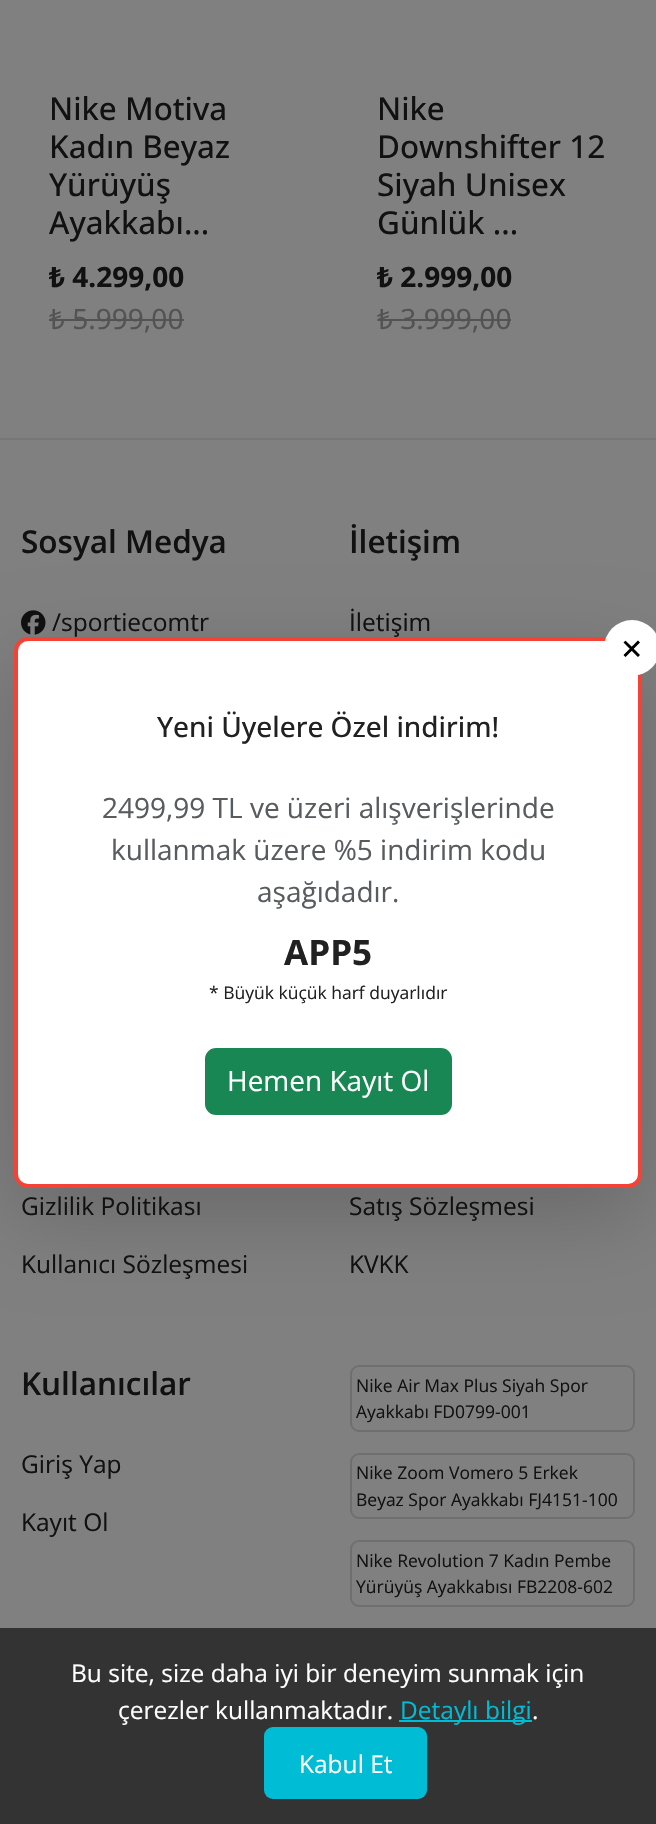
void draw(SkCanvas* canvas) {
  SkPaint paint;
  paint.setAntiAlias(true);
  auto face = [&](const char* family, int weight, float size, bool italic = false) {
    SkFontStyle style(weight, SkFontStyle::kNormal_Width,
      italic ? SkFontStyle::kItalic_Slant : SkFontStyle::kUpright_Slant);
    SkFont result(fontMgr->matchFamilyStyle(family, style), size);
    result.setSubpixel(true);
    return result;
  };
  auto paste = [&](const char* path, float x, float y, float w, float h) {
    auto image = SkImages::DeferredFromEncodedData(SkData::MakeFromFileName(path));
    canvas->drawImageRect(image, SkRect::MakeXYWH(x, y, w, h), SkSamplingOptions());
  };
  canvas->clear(0xff808080);
  {
    const struct { float x, y, w, h; SkColor color; } items[] = {
      {49, 319, 135, 2, 0xff535353},
      {378, 319, 133, 2, 0xff535353},
      {0, 438, 656, 2, 0xff777777},
    };
    for (auto [x, y, w, h, color] : items) {
      paint.setColor(color);
      canvas->drawRect(SkRect::MakeXYWH(x, y, w, h), paint);
    }
  }
  paste("img/1.png", 21, 610, 25, 25);
  paint.setStroke(true);
  paint.setStrokeWidth(2);
  paint.setColor(0xff6f6f6f);
  canvas->drawRoundRect(SkRect::MakeXYWH(351, 1366, 283, 65), 8, 8, paint);
  canvas->drawRoundRect(SkRect::MakeXYWH(351, 1454, 283, 64), 8, 8, paint);
  canvas->drawRoundRect(SkRect::MakeXYWH(351, 1541, 283, 65), 8, 8, paint);
  paint.setStroke(false);
  paint.setColor(0x2e000000);
  paint.setMaskFilter(SkMaskFilter::MakeBlur(kNormal_SkBlurStyle, 42));
  canvas->drawRoundRect(SkRect::MakeXYWH(14, 665, 628, 551), 14, 14, paint);
  paint.setMaskFilter(nullptr);
  paint.setColor(0xffffffff);
  canvas->drawRoundRect(SkRect::MakeXYWH(16, 639, 624, 547), 12, 12, paint);
  paint.setStroke(true);
  paint.setStrokeWidth(4);
  paint.setColor(0xfff44336);
  canvas->drawRoundRect(SkRect::MakeXYWH(16, 639, 624, 547), 12, 12, paint);
  paint.setStroke(false);
  paint.setColor(0xffffffff);
  canvas->drawCircle(632, 648, 28, paint);
  paint.setColor(0xff198754);
  canvas->drawRoundRect(SkRect::MakeXYWH(206, 1049, 245, 65), 10, 10, paint);
  paint.setStroke(true);
  paint.setStrokeWidth(2);
  canvas->drawRoundRect(SkRect::MakeXYWH(206, 1049, 245, 65), 10, 10, paint);
  paint.setStroke(false);
  paint.setColor(0xff333333);
  canvas->drawRect(SkRect::MakeXYWH(0, 1628, 656, 196), paint);
  paint.setColor(0xff00bcd4);
  canvas->drawRect(SkRect::MakeXYWH(399, 1720, 133, 2), paint);
  canvas->drawRoundRect(SkRect::MakeXYWH(264, 1727, 163, 72), 9, 9, paint);
  auto f0 = face("Open Sans", 500, 31.5f);
  paint.setColor(0xff111111);
  {
    const struct { const char* s; float x, y; } items[] = {
      {"Nike Motiva", 49, 120},
      {"Kadın Beyaz", 49, 158},
      {"Yürüyüş", 49, 196},
      {"Ayakkabı...", 49, 234},
    };
    for (auto [s, x, y] : items) {
      canvas->drawString(s, x, y, f0, paint);
    }
  }
  auto f1 = face("Noto Sans", 700, 28);
  canvas->drawString("₺ 4.299,00", 49, 287, f1, paint);
  auto f2 = face("Noto Sans", 400, 28);
  paint.setColor(0xff535353);
  canvas->drawString("₺ 5.999,00", 49, 329, f2, paint);
  paint.setColor(0xff111111);
  {
    const struct { const char* s; float x, y; } items[] = {
      {"Nike", 377, 120},
      {"Downshifter 12", 377, 158},
      {"Siyah Unisex", 377, 196},
      {"Günlük ...", 377, 234},
    };
    for (auto [s, x, y] : items) {
      canvas->drawString(s, x, y, f0, paint);
    }
  }
  canvas->drawString("₺ 2.999,00", 377, 287, f1, paint);
  paint.setColor(0xff535353);
  canvas->drawString("₺ 3.999,00", 377, 329, f2, paint);
  auto f3 = face("Open Sans", 600, 31.5f);
  paint.setColor(0xff111111);
  canvas->drawString("Sosyal Medya", 21, 553, f3, paint);
  auto f4 = face("Open Sans", 400, 24.5f);
  canvas->drawString("/sportiecomtr", 52, 631, f4, paint);
  canvas->drawString("İletişim", 349, 553, f3, paint);
  {
    const struct { const char* s; float x, y; } items[] = {
      {"İletişim", 349, 631},
      {"Gizlilik Politikası", 21, 1215},
      {"Kullanıcı Sözleşmesi", 21, 1273},
      {"Satış Sözleşmesi", 349, 1215},
      {"KVKK", 349, 1273},
    };
    for (auto [s, x, y] : items) {
      canvas->drawString(s, x, y, f4, paint);
    }
  }
  canvas->drawString("Kullanıcılar", 21, 1395, f3, paint);
  canvas->drawString("Giriş Yap", 21, 1473, f4, paint);
  canvas->drawString("Kayıt Ol", 21, 1531, f4, paint);
  auto f5 = face("Open Sans", 400, 17.5f);
  {
    const struct { const char* s; float x, y; } items[] = {
      {"Nike Air Max Plus Siyah Spor", 356, 1392},
      {"Ayakkabı FD0799-001", 356, 1418},
      {"Nike Zoom Vomero 5 Erkek", 356, 1479},
      {"Beyaz Spor Ayakkabı FJ4151-100", 356, 1506},
      {"Nike Revolution 7 Kadın Pembe", 356, 1567},
      {"Yürüyüş Ayakkabısı FB2208-602", 356, 1593},
    };
    for (auto [s, x, y] : items) {
      canvas->drawString(s, x, y, f5, paint);
    }
  }
  auto f6 = face("DejaVu Sans", 400, 28);
  paint.setColor(0xff000000);
  canvas->drawString("✕", 620, 659, f6, paint);
  auto f7 = face("Open Sans", 500, 28);
  paint.setColor(0xff212121);
  canvas->drawString("Yeni Üyelere Özel indirim!", 157, 737, f7, paint);
  auto f8 = face("Open Sans", 400, 28);
  paint.setColor(0xff595c5f);
  {
    const struct { const char* s; float x, y; } items[] = {
      {"2499,99 TL ve üzeri alışverişlerinde", 102, 818},
      {"kullanmak üzere %5 indirim kodu", 111, 860},
      {"aşağıdadır.", 257, 902},
    };
    for (auto [s, x, y] : items) {
      canvas->drawString(s, x, y, f8, paint);
    }
  }
  auto f9 = face("Open Sans", 700, 35);
  paint.setColor(0xff212121);
  canvas->drawString("APP5", 284, 965, f9, paint);
  canvas->drawString("* Büyük küçük harf duyarlıdır", 209, 999, f5, paint);
  paint.setColor(0xffffffff);
  canvas->drawString("Hemen Kayıt Ol", 227, 1091, f8, paint);
  canvas->drawString("Bu site, size daha iyi bir deneyim sunmak için", 71, 1682, f4, paint);
  canvas->drawString("çerezler kullanmaktadır.", 118, 1719, f4, paint);
  paint.setColor(0xff00bcd4);
  canvas->drawString("Detaylı bilgi", 400, 1719, f4, paint);
  paint.setColor(0xffffffff);
  canvas->drawString(".", 532, 1719, f4, paint);
  canvas->drawString("Kabul Et", 299, 1773, f4, paint);
}
